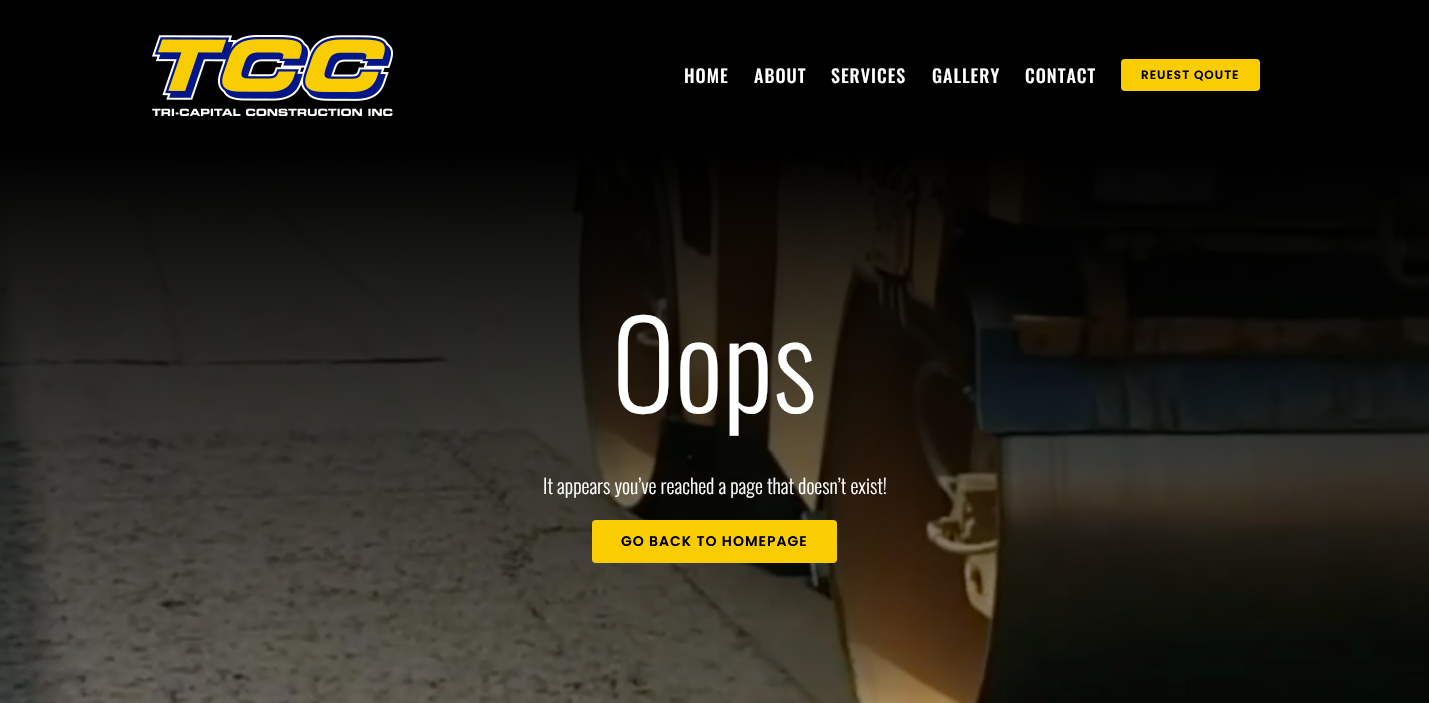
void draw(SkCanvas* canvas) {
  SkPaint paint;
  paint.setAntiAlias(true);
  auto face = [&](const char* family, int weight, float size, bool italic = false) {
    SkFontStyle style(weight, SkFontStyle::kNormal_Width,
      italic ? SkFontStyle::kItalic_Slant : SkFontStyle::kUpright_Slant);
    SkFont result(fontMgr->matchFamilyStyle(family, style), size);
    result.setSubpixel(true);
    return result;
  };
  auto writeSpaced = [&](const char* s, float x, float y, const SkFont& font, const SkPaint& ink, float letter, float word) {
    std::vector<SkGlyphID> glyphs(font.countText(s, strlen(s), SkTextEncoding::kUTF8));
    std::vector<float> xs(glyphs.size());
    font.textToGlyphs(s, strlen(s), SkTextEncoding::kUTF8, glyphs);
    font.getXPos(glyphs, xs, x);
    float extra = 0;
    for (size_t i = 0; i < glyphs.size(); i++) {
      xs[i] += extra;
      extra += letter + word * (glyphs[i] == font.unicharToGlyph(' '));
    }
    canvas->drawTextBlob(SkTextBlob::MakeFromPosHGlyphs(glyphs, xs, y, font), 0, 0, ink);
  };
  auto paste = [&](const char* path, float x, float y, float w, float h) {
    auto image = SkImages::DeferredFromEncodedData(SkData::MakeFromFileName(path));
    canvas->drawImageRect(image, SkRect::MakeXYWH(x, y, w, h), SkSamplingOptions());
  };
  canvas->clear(0xffffffff);
  paint.setColor(0xff000000);
  canvas->drawRect(SkRect::MakeXYWH(0, 0, 1429, 151), paint);
  paste("img/1.png", 152, 35, 241, 81);
  paint.setColor(0xfffacd01);
  canvas->drawRoundRect(SkRect::MakeXYWH(1121, 59, 139, 32), 4, 4, paint);
  paste("img/2.png", 0, 151, 1429, 552);
  canvas->drawRoundRect(SkRect::MakeXYWH(592, 520, 245, 43), 4, 4, paint);
  auto f0 = face("Oswald", 500, 18);
  paint.setColor(0xffffffff);
  {
    const struct { const char* s; float x, y; } items[] = {
      {"HOME", 684, 83},
      {"ABOUT", 754, 83},
      {"SERVICES", 831, 83},
      {"GALLERY", 932, 83},
      {"CONTACT", 1025, 83},
    };
    for (auto [s, x, y] : items) {
      writeSpaced(s, x, y, f0, paint, 1, 0);
    }
  }
  auto f1 = face("Poppins", 600, 12);
  paint.setColor(0xff000000);
  writeSpaced("REUEST QOUTE", 1141, 79, f1, paint, 1, 0);
  auto f2 = face("Oswald", 300, 120);
  paint.setColor(0xffffffff);
  canvas->drawString("Oops", 612, 413, f2, paint);
  auto f3 = face("Oswald", 300, 20);
  canvas->drawString("It appears you’ve reached a page that doesn’t exist!", 543, 494, f3, paint);
  auto f4 = face("Poppins", 600, 14);
  paint.setColor(0xff000000);
  writeSpaced("GO BACK TO HOMEPAGE", 621, 546, f4, paint, 1, 0);
}
